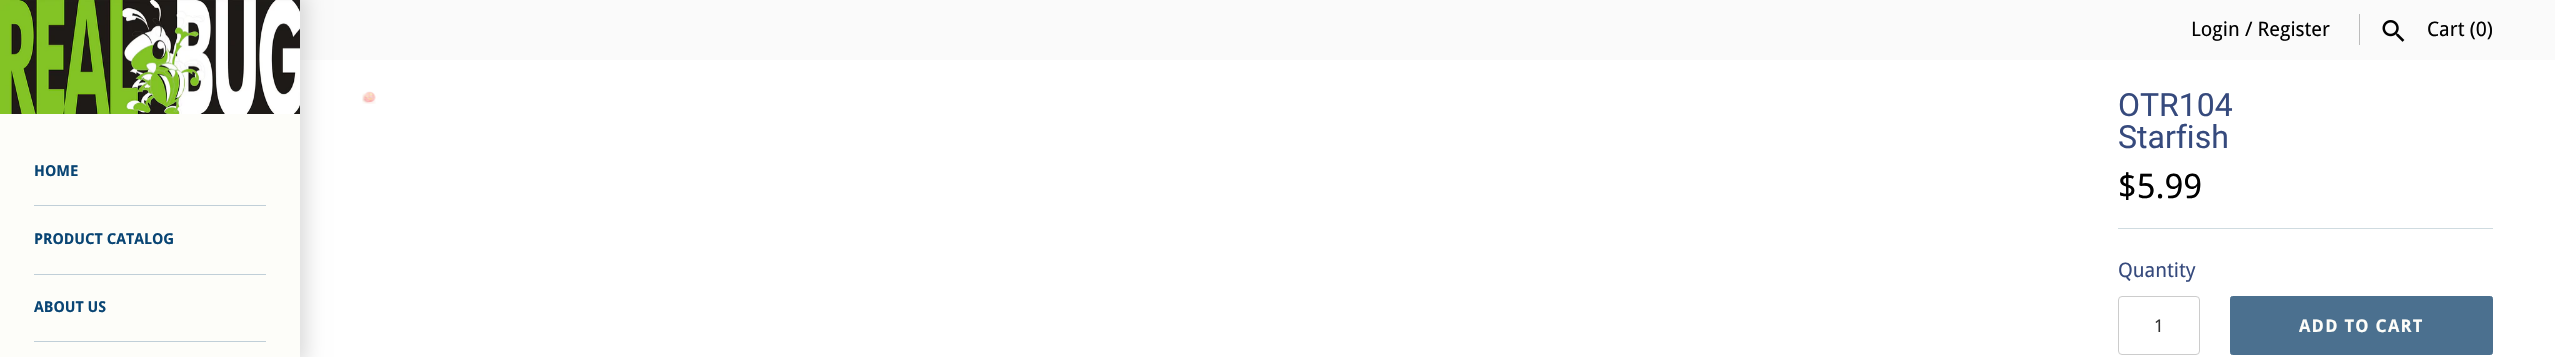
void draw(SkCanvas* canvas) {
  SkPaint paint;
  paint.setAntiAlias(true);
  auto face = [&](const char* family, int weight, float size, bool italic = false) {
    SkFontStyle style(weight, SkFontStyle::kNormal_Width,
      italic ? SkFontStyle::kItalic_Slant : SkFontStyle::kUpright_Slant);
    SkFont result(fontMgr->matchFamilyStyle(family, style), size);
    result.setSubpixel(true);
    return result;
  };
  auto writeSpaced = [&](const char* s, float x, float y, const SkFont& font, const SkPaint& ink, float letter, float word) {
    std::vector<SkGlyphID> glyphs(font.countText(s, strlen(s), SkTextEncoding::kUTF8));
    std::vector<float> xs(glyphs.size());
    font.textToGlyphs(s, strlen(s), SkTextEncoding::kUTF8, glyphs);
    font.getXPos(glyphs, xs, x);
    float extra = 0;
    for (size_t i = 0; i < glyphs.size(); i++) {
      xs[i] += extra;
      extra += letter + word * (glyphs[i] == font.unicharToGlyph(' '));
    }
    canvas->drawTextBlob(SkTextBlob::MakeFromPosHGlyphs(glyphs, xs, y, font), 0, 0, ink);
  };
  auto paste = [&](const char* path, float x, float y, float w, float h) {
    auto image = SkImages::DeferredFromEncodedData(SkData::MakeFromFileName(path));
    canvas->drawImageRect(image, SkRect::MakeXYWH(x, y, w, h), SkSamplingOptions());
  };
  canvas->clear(0xffffffff);
  paint.setColor(0xfffafafa);
  canvas->drawRect(SkRect::MakeXYWH(300, 0, 2255, 60), paint);
  paint.setColor(0xffbcbcbc);
  canvas->drawRect(SkRect::MakeXYWH(2359, 14, 1, 31), paint);
  paste("img/1.png", 2382, 20, 23, 22);
  paint.setColor(0x26000000);
  paint.setMaskFilter(SkMaskFilter::MakeBlur(kNormal_SkBlurStyle, 9.5f));
  canvas->drawRect(SkRect::MakeXYWH(-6, -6, 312, 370), paint);
  paint.setMaskFilter(nullptr);
  paint.setColor(0xfffdfdf9);
  canvas->drawRect(SkRect::MakeXYWH(0, 114, 300, 243), paint);
  paste("img/2.png", 0, 0, 300, 114);
  {
    const struct { float x, y, w, h; SkColor color; } items[] = {
      {34, 205, 232, 1, 0xffc0cfd8},
      {34, 274, 232, 1, 0xffc0cfd8},
      {34, 341, 232, 1, 0xffc0cfd8},
    };
    for (auto [x, y, w, h, color] : items) {
      paint.setColor(color);
      canvas->drawRect(SkRect::MakeXYWH(x, y, w, h), paint);
    }
  }
  paste("img/3.png", 362, 91, 14, 13);
  paint.setColor(0xffcfdbe0);
  canvas->drawRect(SkRect::MakeXYWH(2118, 228, 375, 1), paint);
  paint.setStroke(true);
  paint.setStrokeWidth(1);
  paint.setColor(0xffcccccc);
  canvas->drawRoundRect(SkRect::MakeXYWH(2118.5f, 296.5f, 81, 58), 3.5f, 3.5f, paint);
  paint.setStroke(false);
  paint.setColor(0xff4b708f);
  canvas->drawRoundRect(SkRect::MakeXYWH(2230.5f, 296.5f, 262, 58), 2, 2, paint);
  paint.setStroke(true);
  canvas->drawRoundRect(SkRect::MakeXYWH(2230.5f, 296.5f, 262, 58), 2, 2, paint);
  auto f0 = face("Droid Sans", 400, 20);
  paint.setStroke(false);
  paint.setColor(0xff000000);
  canvas->drawString("Login / Register", 2191, 36, f0, paint);
  canvas->drawString("Cart (0)", 2427, 36, f0, paint);
  auto f1 = face("Droid Sans", 700, 15);
  paint.setColor(0xff094574);
  {
    const struct { const char* s; float x, y; } items[] = {
      {"HOME", 34, 176},
      {"PRODUCT CATALOG", 34, 244},
      {"ABOUT US", 34, 312},
    };
    for (auto [s, x, y] : items) {
      canvas->drawString(s, x, y, f1, paint);
    }
  }
  auto f2 = face("Roboto", 400, 32);
  paint.setColor(0xff364a7d);
  canvas->drawString("OTR104", 2118, 116, f2, paint);
  canvas->drawString("Starfish", 2118, 148, f2, paint);
  auto f3 = face("Droid Sans", 400, 34);
  paint.setColor(0xff000000);
  canvas->drawString("$5.99", 2118, 198, f3, paint);
  paint.setColor(0xff364a7d);
  canvas->drawString("Quantity", 2118, 277, f0, paint);
  auto f4 = face("Droid Sans", 400, 17.5f);
  paint.setColor(0xff333333);
  canvas->drawString("1", 2154, 332, f4, paint);
  auto f5 = face("Droid Sans", 700, 17.5f);
  paint.setColor(0xfffdfdf9);
  writeSpaced("ADD TO CART", 2299, 332, f5, paint, 1.25f, 0);
}
